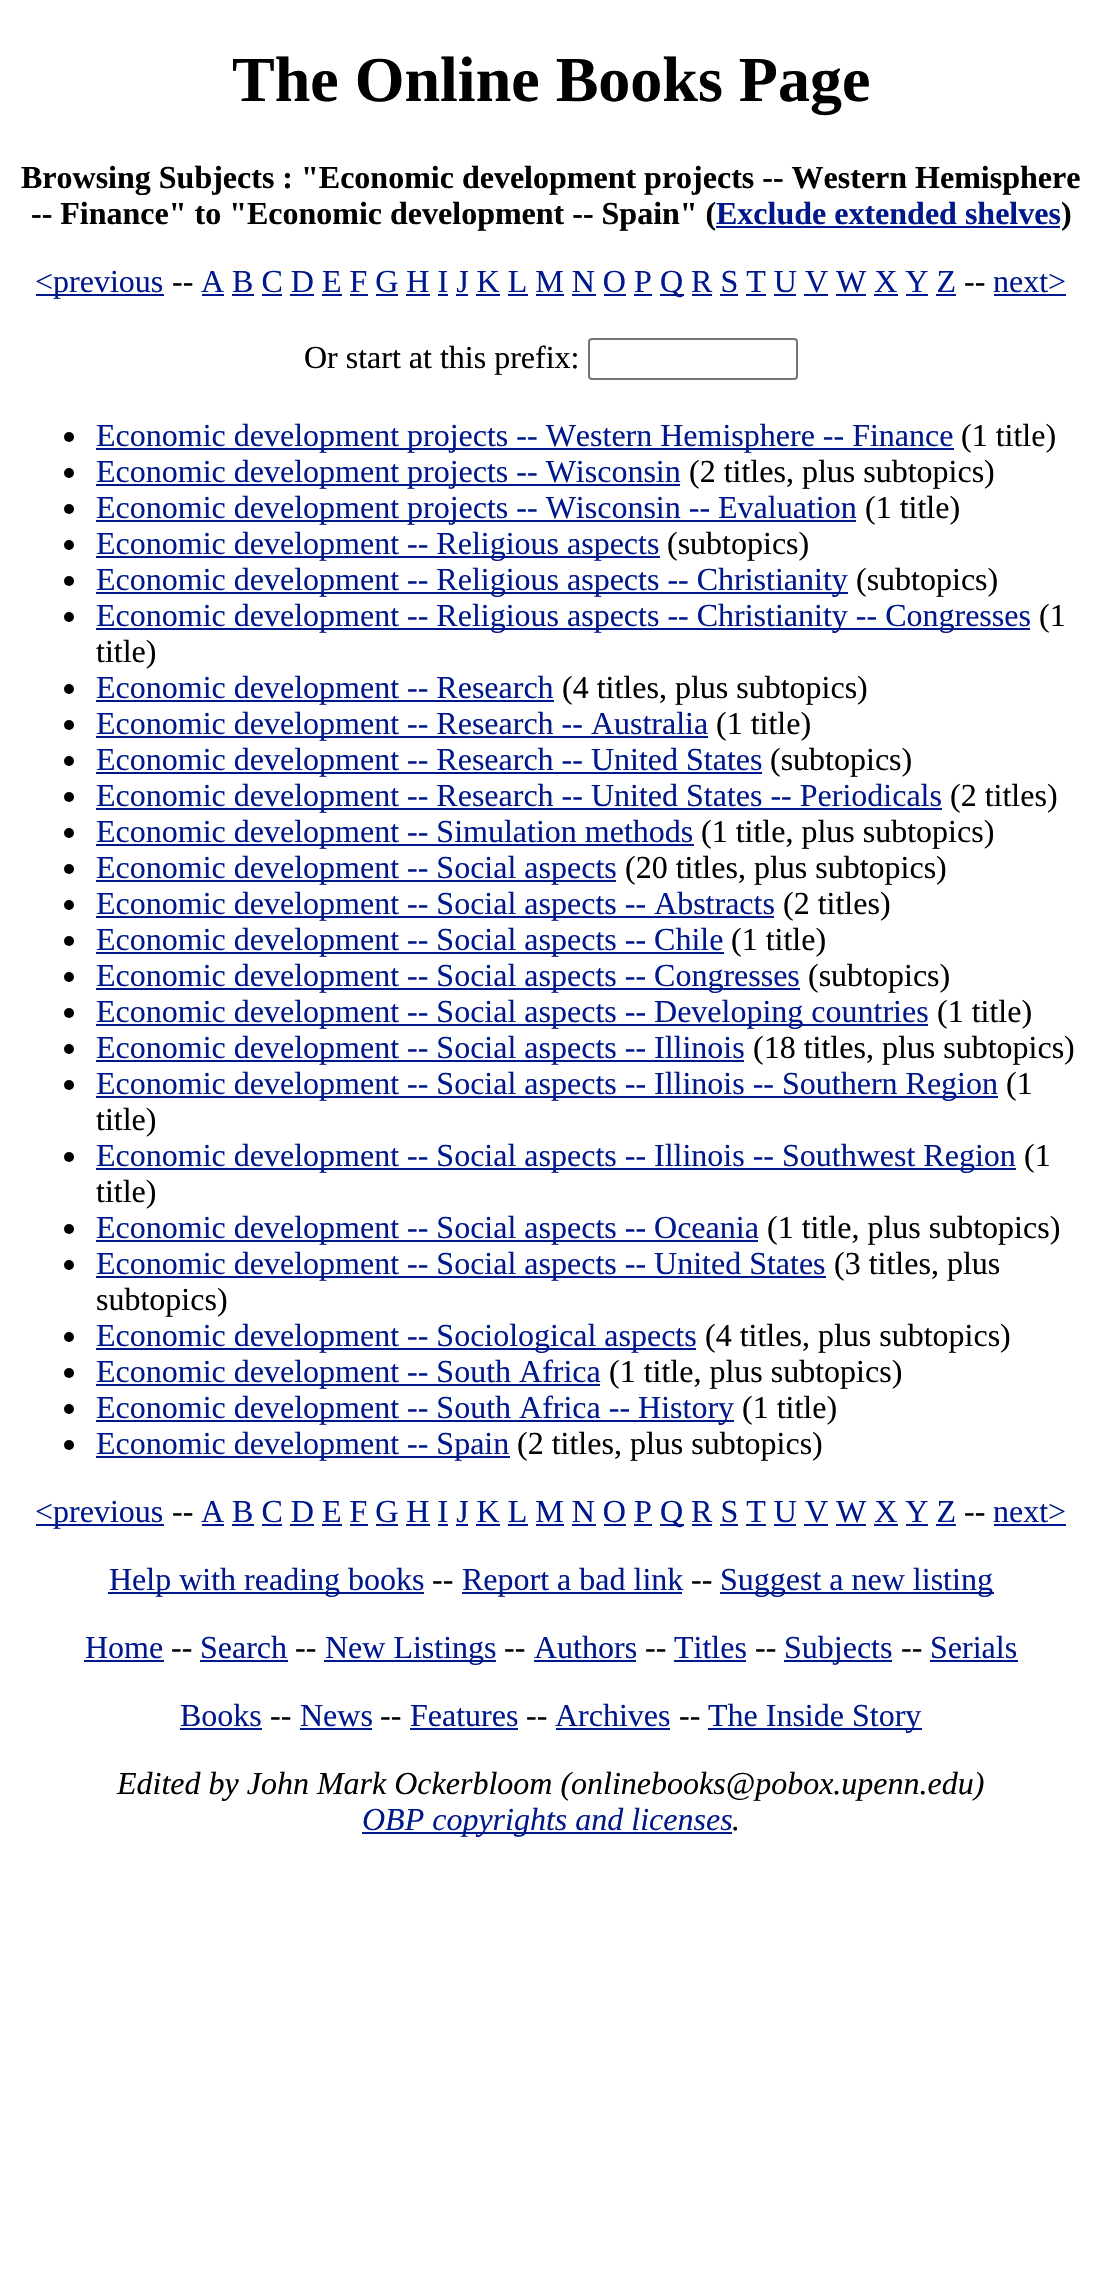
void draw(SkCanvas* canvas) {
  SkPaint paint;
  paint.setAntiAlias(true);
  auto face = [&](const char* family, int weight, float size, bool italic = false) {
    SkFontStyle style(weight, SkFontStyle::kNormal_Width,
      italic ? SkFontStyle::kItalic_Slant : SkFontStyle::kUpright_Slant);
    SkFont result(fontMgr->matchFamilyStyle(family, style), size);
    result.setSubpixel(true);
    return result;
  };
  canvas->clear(0xffffffff);
  {
    const struct { float x, y, w, h; SkColor color; } items[] = {
      {716, 226, 344, 2, 0xff00188c},
      {36, 294, 128, 2, 0xff00188c},
      {202, 294, 22, 2, 0xff00188c},
      {660, 294, 24, 2, 0xff00188c},
      {994, 294, 72, 2, 0xff00188c},
      {232, 294, 22, 2, 0xff00188c},
      {262, 294, 20, 2, 0xff00188c},
      {290, 294, 24, 2, 0xff00188c},
      {322, 294, 20, 2, 0xff00188c},
      {350, 294, 18, 2, 0xff00188c},
      {376, 294, 22, 2, 0xff00188c},
      {406, 294, 24, 2, 0xff00188c},
      {438, 294, 10, 2, 0xff00188c},
      {456, 294, 12, 2, 0xff00188c},
      {476, 294, 24, 2, 0xff00188c},
      {508, 294, 20, 2, 0xff00188c},
      {536, 294, 28, 2, 0xff00188c},
      {572, 294, 24, 2, 0xff00188c},
      {604, 294, 22, 2, 0xff00188c},
      {634, 294, 18, 2, 0xff00188c},
      {692, 294, 20, 2, 0xff00188c},
      {720, 294, 18, 2, 0xff00188c},
      {746, 294, 20, 2, 0xff00188c},
      {774, 294, 22, 2, 0xff00188c},
      {804, 294, 24, 2, 0xff00188c},
      {836, 294, 30, 2, 0xff00188c},
      {874, 294, 24, 2, 0xff00188c},
      {906, 294, 22, 2, 0xff00188c},
      {936, 294, 20, 2, 0xff00188c},
    };
    for (auto [x, y, w, h, color] : items) {
      paint.setColor(color);
      canvas->drawRect(SkRect::MakeXYWH(x, y, w, h), paint);
    }
  }
  paint.setStroke(true);
  paint.setStrokeWidth(2);
  paint.setColor(0xff767676);
  canvas->drawRoundRect(SkRect::MakeXYWH(589, 339, 208, 40), 3, 3, paint);
  paint.setStroke(false);
  paint.setColor(0xff000000);
  canvas->drawCircle(69, 437, 5, paint);
  paint.setColor(0xff00188c);
  canvas->drawRect(SkRect::MakeXYWH(96, 448, 858, 2), paint);
  paint.setColor(0xff000000);
  canvas->drawCircle(69, 473, 5, paint);
  paint.setColor(0xff00188c);
  canvas->drawRect(SkRect::MakeXYWH(96, 484, 584, 2), paint);
  paint.setColor(0xff000000);
  canvas->drawCircle(69, 509, 5, paint);
  paint.setColor(0xff00188c);
  canvas->drawRect(SkRect::MakeXYWH(96, 520, 760, 2), paint);
  paint.setColor(0xff000000);
  canvas->drawCircle(69, 545, 5, paint);
  paint.setColor(0xff00188c);
  canvas->drawRect(SkRect::MakeXYWH(96, 556, 564, 2), paint);
  paint.setColor(0xff000000);
  canvas->drawCircle(69, 581, 5, paint);
  paint.setColor(0xff00188c);
  canvas->drawRect(SkRect::MakeXYWH(96, 592, 752, 2), paint);
  paint.setColor(0xff000000);
  canvas->drawCircle(69, 617, 5, paint);
  paint.setColor(0xff00188c);
  canvas->drawRect(SkRect::MakeXYWH(96, 628, 934, 2), paint);
  paint.setColor(0xff000000);
  canvas->drawCircle(69, 689, 5, paint);
  paint.setColor(0xff00188c);
  canvas->drawRect(SkRect::MakeXYWH(96, 700, 458, 2), paint);
  paint.setColor(0xff000000);
  canvas->drawCircle(69, 725, 5, paint);
  paint.setColor(0xff00188c);
  canvas->drawRect(SkRect::MakeXYWH(96, 736, 612, 2), paint);
  paint.setColor(0xff000000);
  canvas->drawCircle(69, 761, 5, paint);
  paint.setColor(0xff00188c);
  canvas->drawRect(SkRect::MakeXYWH(96, 772, 666, 2), paint);
  paint.setColor(0xff000000);
  canvas->drawCircle(69, 797, 5, paint);
  paint.setColor(0xff00188c);
  canvas->drawRect(SkRect::MakeXYWH(96, 808, 846, 2), paint);
  paint.setColor(0xff000000);
  canvas->drawCircle(69, 833, 5, paint);
  paint.setColor(0xff00188c);
  canvas->drawRect(SkRect::MakeXYWH(96, 844, 598, 2), paint);
  paint.setColor(0xff000000);
  canvas->drawCircle(69, 869, 5, paint);
  paint.setColor(0xff00188c);
  canvas->drawRect(SkRect::MakeXYWH(96, 880, 520, 2), paint);
  paint.setColor(0xff000000);
  canvas->drawCircle(69, 905, 5, paint);
  paint.setColor(0xff00188c);
  canvas->drawRect(SkRect::MakeXYWH(96, 916, 678, 2), paint);
  paint.setColor(0xff000000);
  canvas->drawCircle(69, 941, 5, paint);
  paint.setColor(0xff00188c);
  canvas->drawRect(SkRect::MakeXYWH(96, 952, 628, 2), paint);
  paint.setColor(0xff000000);
  canvas->drawCircle(69, 977, 5, paint);
  paint.setColor(0xff00188c);
  canvas->drawRect(SkRect::MakeXYWH(96, 988, 704, 2), paint);
  paint.setColor(0xff000000);
  canvas->drawCircle(69, 1013, 5, paint);
  paint.setColor(0xff00188c);
  canvas->drawRect(SkRect::MakeXYWH(96, 1024, 832, 2), paint);
  paint.setColor(0xff000000);
  canvas->drawCircle(69, 1049, 5, paint);
  paint.setColor(0xff00188c);
  canvas->drawRect(SkRect::MakeXYWH(96, 1060, 648, 2), paint);
  paint.setColor(0xff000000);
  canvas->drawCircle(69, 1085, 5, paint);
  paint.setColor(0xff00188c);
  canvas->drawRect(SkRect::MakeXYWH(96, 1096, 902, 2), paint);
  paint.setColor(0xff000000);
  canvas->drawCircle(69, 1157, 5, paint);
  paint.setColor(0xff00188c);
  canvas->drawRect(SkRect::MakeXYWH(96, 1168, 920, 2), paint);
  paint.setColor(0xff000000);
  canvas->drawCircle(69, 1229, 5, paint);
  paint.setColor(0xff00188c);
  canvas->drawRect(SkRect::MakeXYWH(96, 1240, 662, 2), paint);
  paint.setColor(0xff000000);
  canvas->drawCircle(69, 1265, 5, paint);
  paint.setColor(0xff00188c);
  canvas->drawRect(SkRect::MakeXYWH(96, 1276, 730, 2), paint);
  paint.setColor(0xff000000);
  canvas->drawCircle(69, 1337, 5, paint);
  paint.setColor(0xff00188c);
  canvas->drawRect(SkRect::MakeXYWH(96, 1348, 600, 2), paint);
  paint.setColor(0xff000000);
  canvas->drawCircle(69, 1373, 5, paint);
  paint.setColor(0xff00188c);
  canvas->drawRect(SkRect::MakeXYWH(96, 1384, 504, 2), paint);
  paint.setColor(0xff000000);
  canvas->drawCircle(69, 1409, 5, paint);
  paint.setColor(0xff00188c);
  canvas->drawRect(SkRect::MakeXYWH(96, 1420, 638, 2), paint);
  paint.setColor(0xff000000);
  canvas->drawCircle(69, 1445, 5, paint);
  {
    const struct { float x, y, w, h; SkColor color; } items[] = {
      {96, 1456, 414, 2, 0xff00188c},
      {36, 1524, 128, 2, 0xff00188c},
      {202, 1524, 22, 2, 0xff00188c},
      {660, 1524, 24, 2, 0xff00188c},
      {994, 1524, 72, 2, 0xff00188c},
      {232, 1524, 22, 2, 0xff00188c},
      {262, 1524, 20, 2, 0xff00188c},
      {290, 1524, 24, 2, 0xff00188c},
      {322, 1524, 20, 2, 0xff00188c},
      {350, 1524, 18, 2, 0xff00188c},
      {376, 1524, 22, 2, 0xff00188c},
      {406, 1524, 24, 2, 0xff00188c},
      {438, 1524, 10, 2, 0xff00188c},
      {456, 1524, 12, 2, 0xff00188c},
      {476, 1524, 24, 2, 0xff00188c},
      {508, 1524, 20, 2, 0xff00188c},
      {536, 1524, 28, 2, 0xff00188c},
      {572, 1524, 24, 2, 0xff00188c},
      {604, 1524, 22, 2, 0xff00188c},
      {634, 1524, 18, 2, 0xff00188c},
      {692, 1524, 20, 2, 0xff00188c},
      {720, 1524, 18, 2, 0xff00188c},
      {746, 1524, 20, 2, 0xff00188c},
      {774, 1524, 22, 2, 0xff00188c},
      {804, 1524, 24, 2, 0xff00188c},
      {836, 1524, 30, 2, 0xff00188c},
      {874, 1524, 24, 2, 0xff00188c},
      {906, 1524, 22, 2, 0xff00188c},
      {936, 1524, 20, 2, 0xff00188c},
      {108, 1592, 316, 2, 0xff00188c},
      {462, 1592, 220, 2, 0xff00188c},
      {720, 1592, 274, 2, 0xff00188c},
      {84, 1660, 80, 2, 0xff00188c},
      {200, 1660, 88, 2, 0xff00188c},
      {324, 1660, 172, 2, 0xff00188c},
      {534, 1660, 102, 2, 0xff00188c},
      {674, 1660, 72, 2, 0xff00188c},
      {784, 1660, 108, 2, 0xff00188c},
      {930, 1660, 88, 2, 0xff00188c},
      {180, 1728, 82, 2, 0xff00188c},
      {300, 1728, 72, 2, 0xff00188c},
      {410, 1728, 108, 2, 0xff00188c},
      {556, 1728, 114, 2, 0xff00188c},
      {708, 1728, 214, 2, 0xff00188c},
      {362, 1832, 370, 2, 0xff00188c},
    };
    for (auto [x, y, w, h, color] : items) {
      paint.setColor(color);
      canvas->drawRect(SkRect::MakeXYWH(x, y, w, h), paint);
    }
  }
  auto f0 = face("Liberation Serif", 700, 64);
  paint.setColor(0xff000000);
  canvas->drawString("The Online Books Page", 232, 101, f0, paint);
  auto f1 = face("Liberation Serif", 700, 32);
  canvas->drawString("Browsing Subjects : \"Economic development projects -- Western Hemisphere", 21, 188, f1, paint);
  canvas->drawString("-- Finance\" to \"Economic development -- Spain\" (", 31, 224, f1, paint);
  paint.setColor(0xff00188c);
  canvas->drawString("Exclude extended shelves", 716, 224, f1, paint);
  paint.setColor(0xff000000);
  canvas->drawString(")", 1061, 224, f1, paint);
  auto f2 = face("Liberation Serif", 400, 32);
  paint.setColor(0xff00188c);
  canvas->drawString("<previous", 35, 292, f2, paint);
  paint.setColor(0xff000000);
  canvas->drawString("--", 172, 292, f2, paint);
  paint.setColor(0xff00188c);
  canvas->drawString("A B C D E F G H I J K L M N O P", 201, 292, f2, paint);
  canvas->drawString("Q R S T U V W X Y Z", 660, 292, f2, paint);
  paint.setColor(0xff000000);
  canvas->drawString("--", 964, 292, f2, paint);
  paint.setColor(0xff00188c);
  canvas->drawString("next>", 993, 292, f2, paint);
  paint.setColor(0xff000000);
  canvas->drawString("Or start at this prefix:", 304, 368, f2, paint);
  paint.setColor(0xff00188c);
  canvas->drawString("Economic development projects -- Western Hemisphere -- Finance", 96, 446, f2, paint);
  paint.setColor(0xff000000);
  canvas->drawString("(1 title)", 961, 446, f2, paint);
  paint.setColor(0xff00188c);
  canvas->drawString("Economic development projects -- Wisconsin", 96, 482, f2, paint);
  paint.setColor(0xff000000);
  canvas->drawString("(2 titles, plus subtopics)", 689, 482, f2, paint);
  paint.setColor(0xff00188c);
  canvas->drawString("Economic development projects -- Wisconsin -- Evaluation", 96, 518, f2, paint);
  paint.setColor(0xff000000);
  canvas->drawString("(1 title)", 865, 518, f2, paint);
  paint.setColor(0xff00188c);
  canvas->drawString("Economic development -- Religious aspects", 96, 554, f2, paint);
  paint.setColor(0xff000000);
  canvas->drawString("(subtopics)", 667, 554, f2, paint);
  paint.setColor(0xff00188c);
  canvas->drawString("Economic development -- Religious aspects -- Christianity", 96, 590, f2, paint);
  paint.setColor(0xff000000);
  canvas->drawString("(subtopics)", 856, 590, f2, paint);
  paint.setColor(0xff00188c);
  canvas->drawString("Economic development -- Religious aspects -- Christianity -- Congresses", 96, 626, f2, paint);
  paint.setColor(0xff000000);
  canvas->drawString("(1", 1039, 626, f2, paint);
  canvas->drawString("title)", 96, 662, f2, paint);
  paint.setColor(0xff00188c);
  canvas->drawString("Economic development -- Research", 96, 698, f2, paint);
  paint.setColor(0xff000000);
  canvas->drawString("(4 titles, plus subtopics)", 562, 698, f2, paint);
  paint.setColor(0xff00188c);
  canvas->drawString("Economic development -- Research -- Australia", 96, 734, f2, paint);
  paint.setColor(0xff000000);
  canvas->drawString("(1 title)", 716, 734, f2, paint);
  paint.setColor(0xff00188c);
  canvas->drawString("Economic development -- Research -- United States", 96, 770, f2, paint);
  paint.setColor(0xff000000);
  canvas->drawString("(subtopics)", 770, 770, f2, paint);
  paint.setColor(0xff00188c);
  canvas->drawString("Economic development -- Research -- United States -- Periodicals", 96, 806, f2, paint);
  paint.setColor(0xff000000);
  canvas->drawString("(2 titles)", 950, 806, f2, paint);
  paint.setColor(0xff00188c);
  canvas->drawString("Economic development -- Simulation methods", 96, 842, f2, paint);
  paint.setColor(0xff000000);
  canvas->drawString("(1 title, plus subtopics)", 701, 842, f2, paint);
  paint.setColor(0xff00188c);
  canvas->drawString("Economic development -- Social aspects", 96, 878, f2, paint);
  paint.setColor(0xff000000);
  canvas->drawString("(20 titles, plus subtopics)", 625, 878, f2, paint);
  paint.setColor(0xff00188c);
  canvas->drawString("Economic development -- Social aspects -- Abstracts", 96, 914, f2, paint);
  paint.setColor(0xff000000);
  canvas->drawString("(2 titles)", 783, 914, f2, paint);
  paint.setColor(0xff00188c);
  canvas->drawString("Economic development -- Social aspects -- Chile", 96, 950, f2, paint);
  paint.setColor(0xff000000);
  canvas->drawString("(1 title)", 731, 950, f2, paint);
  paint.setColor(0xff00188c);
  canvas->drawString("Economic development -- Social aspects -- Congresses", 96, 986, f2, paint);
  paint.setColor(0xff000000);
  canvas->drawString("(subtopics)", 808, 986, f2, paint);
  paint.setColor(0xff00188c);
  canvas->drawString("Economic development -- Social aspects -- Developing countries", 96, 1022, f2, paint);
  paint.setColor(0xff000000);
  canvas->drawString("(1 title)", 937, 1022, f2, paint);
  paint.setColor(0xff00188c);
  canvas->drawString("Economic development -- Social aspects -- Illinois", 96, 1058, f2, paint);
  paint.setColor(0xff000000);
  canvas->drawString("(18 titles, plus subtopics)", 753, 1058, f2, paint);
  paint.setColor(0xff00188c);
  canvas->drawString("Economic development -- Social aspects -- Illinois -- Southern Region", 96, 1094, f2, paint);
  paint.setColor(0xff000000);
  canvas->drawString("(1", 1006, 1094, f2, paint);
  canvas->drawString("title)", 96, 1130, f2, paint);
  paint.setColor(0xff00188c);
  canvas->drawString("Economic development -- Social aspects -- Illinois -- Southwest Region", 96, 1166, f2, paint);
  paint.setColor(0xff000000);
  canvas->drawString("(1", 1024, 1166, f2, paint);
  canvas->drawString("title)", 96, 1202, f2, paint);
  paint.setColor(0xff00188c);
  canvas->drawString("Economic development -- Social aspects -- Oceania", 96, 1238, f2, paint);
  paint.setColor(0xff000000);
  canvas->drawString("(1 title, plus subtopics)", 767, 1238, f2, paint);
  paint.setColor(0xff00188c);
  canvas->drawString("Economic development -- Social aspects -- United States", 96, 1274, f2, paint);
  paint.setColor(0xff000000);
  canvas->drawString("(3 titles, plus", 834, 1274, f2, paint);
  canvas->drawString("subtopics)", 96, 1310, f2, paint);
  paint.setColor(0xff00188c);
  canvas->drawString("Economic development -- Sociological aspects", 96, 1346, f2, paint);
  paint.setColor(0xff000000);
  canvas->drawString("(4 titles, plus subtopics)", 705, 1346, f2, paint);
  paint.setColor(0xff00188c);
  canvas->drawString("Economic development -- South Africa", 96, 1382, f2, paint);
  paint.setColor(0xff000000);
  canvas->drawString("(1 title, plus subtopics)", 609, 1382, f2, paint);
  paint.setColor(0xff00188c);
  canvas->drawString("Economic development -- South Africa -- History", 96, 1418, f2, paint);
  paint.setColor(0xff000000);
  canvas->drawString("(1 title)", 742, 1418, f2, paint);
  paint.setColor(0xff00188c);
  canvas->drawString("Economic development -- Spain", 96, 1454, f2, paint);
  paint.setColor(0xff000000);
  canvas->drawString("(2 titles, plus subtopics)", 517, 1454, f2, paint);
  paint.setColor(0xff00188c);
  canvas->drawString("<previous", 35, 1522, f2, paint);
  paint.setColor(0xff000000);
  canvas->drawString("--", 172, 1522, f2, paint);
  paint.setColor(0xff00188c);
  canvas->drawString("A B C D E F G H I J K L M N O P", 201, 1522, f2, paint);
  canvas->drawString("Q R S T U V W X Y Z", 660, 1522, f2, paint);
  paint.setColor(0xff000000);
  canvas->drawString("--", 964, 1522, f2, paint);
  paint.setColor(0xff00188c);
  canvas->drawString("next>", 993, 1522, f2, paint);
  canvas->drawString("Help with reading books", 109, 1590, f2, paint);
  paint.setColor(0xff000000);
  canvas->drawString("--", 432, 1590, f2, paint);
  paint.setColor(0xff00188c);
  canvas->drawString("Report a bad link", 462, 1590, f2, paint);
  paint.setColor(0xff000000);
  canvas->drawString("--", 691, 1590, f2, paint);
  paint.setColor(0xff00188c);
  canvas->drawString("Suggest a new listing", 720, 1590, f2, paint);
  canvas->drawString("Home", 85, 1658, f2, paint);
  paint.setColor(0xff000000);
  canvas->drawString("--", 171, 1658, f2, paint);
  paint.setColor(0xff00188c);
  canvas->drawString("Search", 200, 1658, f2, paint);
  paint.setColor(0xff000000);
  canvas->drawString("--", 295, 1658, f2, paint);
  paint.setColor(0xff00188c);
  canvas->drawString("New Listings", 325, 1658, f2, paint);
  paint.setColor(0xff000000);
  canvas->drawString("--", 504, 1658, f2, paint);
  paint.setColor(0xff00188c);
  canvas->drawString("Authors", 534, 1658, f2, paint);
  paint.setColor(0xff000000);
  canvas->drawString("--", 645, 1658, f2, paint);
  paint.setColor(0xff00188c);
  canvas->drawString("Titles", 674, 1658, f2, paint);
  paint.setColor(0xff000000);
  canvas->drawString("--", 755, 1658, f2, paint);
  paint.setColor(0xff00188c);
  canvas->drawString("Subjects", 784, 1658, f2, paint);
  paint.setColor(0xff000000);
  canvas->drawString("--", 901, 1658, f2, paint);
  paint.setColor(0xff00188c);
  canvas->drawString("Serials", 930, 1658, f2, paint);
  canvas->drawString("Books", 180, 1726, f2, paint);
  paint.setColor(0xff000000);
  canvas->drawString("--", 270, 1726, f2, paint);
  paint.setColor(0xff00188c);
  canvas->drawString("News", 300, 1726, f2, paint);
  paint.setColor(0xff000000);
  canvas->drawString("--", 380, 1726, f2, paint);
  paint.setColor(0xff00188c);
  canvas->drawString("Features", 410, 1726, f2, paint);
  paint.setColor(0xff000000);
  canvas->drawString("--", 526, 1726, f2, paint);
  paint.setColor(0xff00188c);
  canvas->drawString("Archives", 555, 1726, f2, paint);
  paint.setColor(0xff000000);
  canvas->drawString("--", 679, 1726, f2, paint);
  paint.setColor(0xff00188c);
  canvas->drawString("The Inside Story", 708, 1726, f2, paint);
  auto f3 = face("Liberation Serif", 400, 32, true);
  paint.setColor(0xff000000);
  canvas->drawString("Edited by John Mark Ockerbloom (onlinebooks@pobox.upenn.edu)", 117, 1794, f3, paint);
  paint.setColor(0xff00188c);
  canvas->drawString("OBP copyrights and licenses", 362, 1830, f3, paint);
  paint.setColor(0xff000000);
  canvas->drawString(".", 732, 1830, f3, paint);
}
